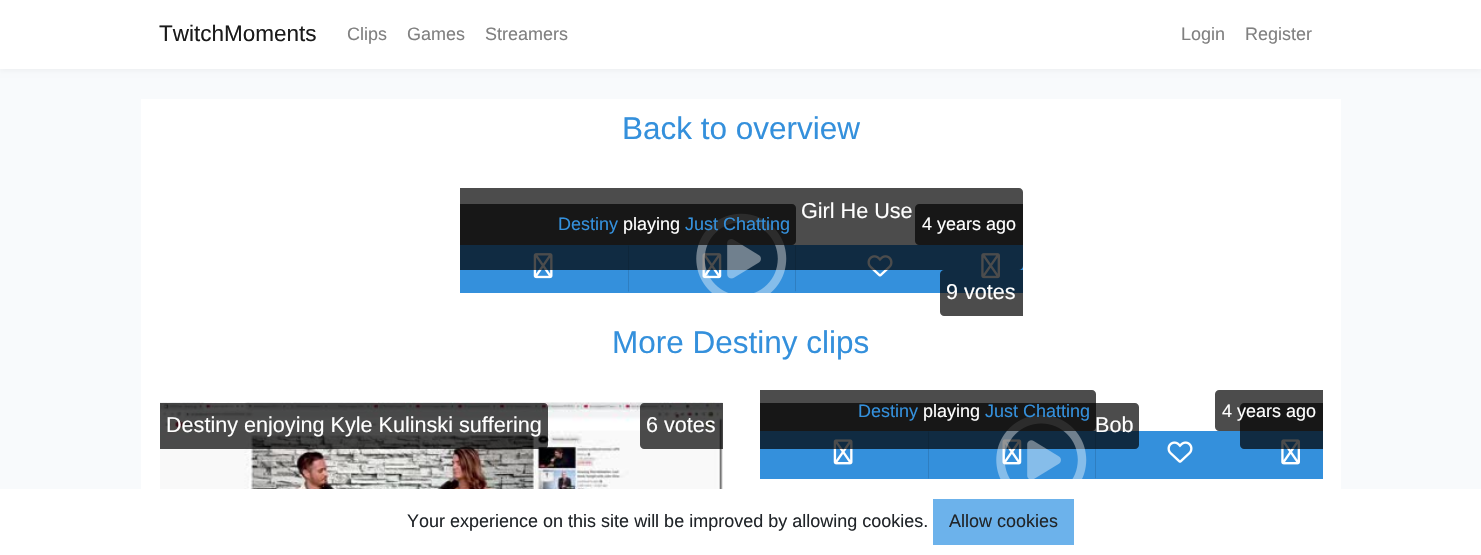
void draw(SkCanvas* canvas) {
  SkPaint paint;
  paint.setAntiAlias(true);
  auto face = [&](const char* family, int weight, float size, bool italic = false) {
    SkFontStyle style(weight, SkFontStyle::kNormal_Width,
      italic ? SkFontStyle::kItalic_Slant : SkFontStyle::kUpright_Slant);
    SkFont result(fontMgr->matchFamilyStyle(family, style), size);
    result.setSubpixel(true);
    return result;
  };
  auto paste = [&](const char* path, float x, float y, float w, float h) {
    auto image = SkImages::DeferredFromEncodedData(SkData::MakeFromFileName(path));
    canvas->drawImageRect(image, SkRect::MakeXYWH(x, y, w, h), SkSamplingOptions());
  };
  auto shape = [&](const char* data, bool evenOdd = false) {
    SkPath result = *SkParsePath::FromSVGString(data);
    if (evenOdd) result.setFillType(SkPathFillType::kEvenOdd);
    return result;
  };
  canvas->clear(0xfff8fafc);
  paint.setColor(0x0a000000);
  paint.setMaskFilter(SkMaskFilter::MakeBlur(kNormal_SkBlurStyle, 2.5f));
  canvas->drawRect(SkRect::MakeXYWH(0, 3, 1481, 68), paint);
  paint.setMaskFilter(nullptr);
  {
    const struct { float x, y, w, h; SkColor color; } items[] = {
      {0, 0, 1481, 69, 0xffffffff},
      {141, 99, 1200, 390, 0xffffffff},
      {460, 245, 563, 48, 0xff3490dc},
    };
    for (auto [x, y, w, h, color] : items) {
      paint.setColor(color);
      canvas->drawRect(SkRect::MakeXYWH(x, y, w, h), paint);
    }
  }
  paste("img/2.png", 533, 253, 20, 26);
  paint.setColor(0xff2e7ec1);
  canvas->drawPath(shape("M796 245V292L795 291V246Z"), paint);
  paint.setColor(0xff3490dc);
  canvas->drawPath(shape("M796 292H628L629 291H795Z"), paint);
  paint.setColor(0xff2e7ec1);
  canvas->drawPath(shape("M628 292V245L629 246V291Z"), paint);
  paste("img/3.png", 702, 253, 20, 26);
  paste("img/4.png", 867, 255, 26, 22);
  paste("img/5.png", 981, 253, 19, 26);
  paint.setColor(0xb3000000);
  canvas->drawPath(shape("M460 188H1019C1021 188 1023 190 1023 192V266C1023 268 1021 270 1019 270H460Z"), paint);
  paste("img/1.png", 696, 213, 91, 80);
  canvas->drawPath(shape("M944 270H1023V316H944C942 316 940 314 940 312V274C940 272 942 270 944 270Z"), paint);
  canvas->drawPath(shape("M460 204H792C794 204 796 206 796 208V241C796 243 794 245 792 245H460Z"), paint);
  canvas->drawPath(shape("M919 204H1023V245H919C917 245 915 243 915 241V208C915 206 917 204 919 204Z"), paint);
  paste("img/6.png", 160, 402, 563, 87);
  canvas->drawPath(shape("M160 403H544C546 403 548 405 548 407V445C548 447 546 449 544 449H160Z"), paint);
  canvas->drawPath(shape("M644 403H723V449H644C642 449 640 447 640 445V407C640 405 642 403 644 403Z"), paint);
  paint.setColor(0xff3490dc);
  canvas->drawRect(SkRect::MakeXYWH(760, 431, 563, 48), paint);
  paste("img/8.png", 833, 439, 20, 26);
  paint.setColor(0xff2e7ec1);
  canvas->drawPath(shape("M1096 431V479L1095 478V432Z"), paint);
  paint.setColor(0xff3490dc);
  canvas->drawPath(shape("M1096 479H928L929 478H1095Z"), paint);
  paint.setColor(0xff2e7ec1);
  canvas->drawPath(shape("M928 479V431L929 432V478Z"), paint);
  paste("img/9.png", 1002, 439, 20, 26);
  paint.setColor(0xb3000000);
  canvas->drawPath(shape("M760 403H1135C1137 403 1139 405 1139 407V445C1139 447 1137 449 1135 449H760Z"), paint);
  paste("img/7.png", 996, 415, 91, 64);
  canvas->drawPath(shape("M760 390H1092C1094 390 1096 392 1096 394V427C1096 429 1094 431 1092 431H760Z"), paint);
  paste("img/11.png", 1281, 439, 19, 26);
  canvas->drawPath(shape("M1244 403H1323V449H1244C1242 449 1240 447 1240 445V407C1240 405 1242 403 1244 403Z"), paint);
  canvas->drawPath(shape("M1219 390H1323V431H1219C1217 431 1215 429 1215 427V394C1215 392 1217 390 1219 390Z"), paint);
  paste("img/10.png", 1167, 441, 26, 22);
  paint.setColor(0xffffffff);
  canvas->drawRect(SkRect::MakeXYWH(0, 489, 1481, 66), paint);
  paint.setColor(0xff6cb2eb);
  canvas->drawRect(SkRect::MakeXYWH(933, 499, 141, 46), paint);
  auto f0 = face("Liberation Sans", 400, 22.5f);
  paint.setColor(0xff1a1a1a);
  canvas->drawString("TwitchMoments", 159, 41, f0, paint);
  auto f1 = face("Liberation Sans", 400, 18);
  paint.setColor(0xff808080);
  {
    const struct { const char* s; float x, y; } items[] = {
      {"Clips", 347, 40},
      {"Games", 407, 40},
      {"Streamers", 485, 40},
      {"Login", 1181, 40},
      {"Register", 1245, 40},
    };
    for (auto [s, x, y] : items) {
      canvas->drawString(s, x, y, f1, paint);
    }
  }
  auto f2 = face("Liberation Sans", 400, 31.5f);
  paint.setColor(0xff3490dc);
  canvas->drawString("Back to overview", 622, 139, f2, paint);
  auto f3 = face("Liberation Sans", 400, 21.6f);
  paint.setColor(0xffffffff);
  canvas->drawString("Girl He Use", 801, 218, f3, paint);
  canvas->drawString("9 votes", 946, 299, f3, paint);
  paint.setColor(0xff3490dc);
  canvas->drawString("Destiny", 558, 230, f1, paint);
  paint.setColor(0xffffffff);
  canvas->drawString("playing", 623, 230, f1, paint);
  paint.setColor(0xff3490dc);
  canvas->drawString("Just Chatting", 685, 230, f1, paint);
  paint.setColor(0xffffffff);
  canvas->drawString("4 years ago", 922, 230, f1, paint);
  paint.setColor(0xff3490dc);
  canvas->drawString("More Destiny clips", 612, 353, f2, paint);
  paint.setColor(0xffffffff);
  canvas->drawString("Destiny enjoying Kyle Kulinski suffering", 166, 432, f3, paint);
  canvas->drawString("6 votes", 646, 432, f3, paint);
  paint.setColor(0xff3490dc);
  canvas->drawString("Destiny", 858, 417, f1, paint);
  paint.setColor(0xffffffff);
  canvas->drawString("playing", 923, 417, f1, paint);
  paint.setColor(0xff3490dc);
  canvas->drawString("Just Chatting", 985, 417, f1, paint);
  paint.setColor(0xffffffff);
  canvas->drawString("4 years ago", 1222, 417, f1, paint);
  canvas->drawString("Bob", 1095, 432, f3, paint);
  paint.setColor(0xff212529);
  canvas->drawString("Your experience on this site will be improved by allowing cookies.", 407, 527, f1, paint);
  canvas->drawString("Allow cookies", 949, 527, f1, paint);
}
